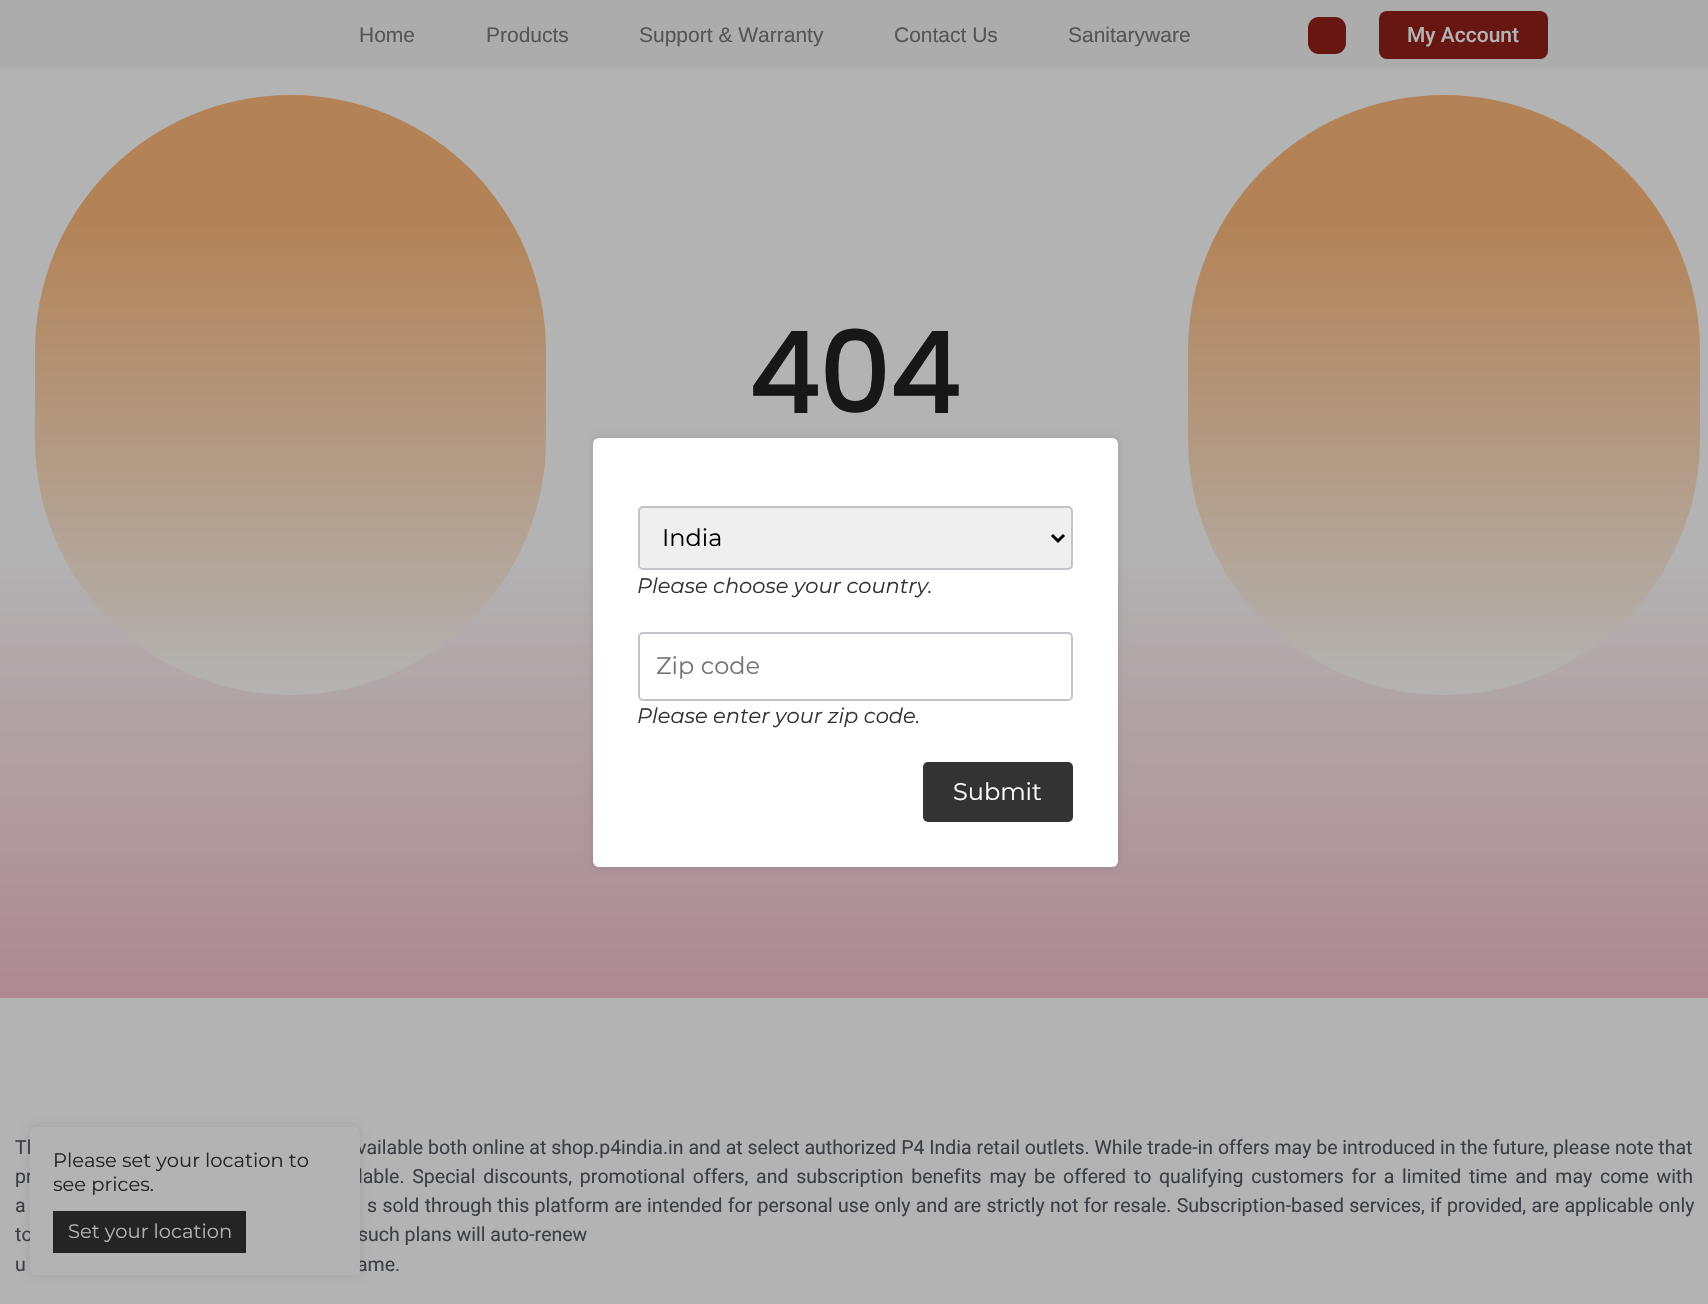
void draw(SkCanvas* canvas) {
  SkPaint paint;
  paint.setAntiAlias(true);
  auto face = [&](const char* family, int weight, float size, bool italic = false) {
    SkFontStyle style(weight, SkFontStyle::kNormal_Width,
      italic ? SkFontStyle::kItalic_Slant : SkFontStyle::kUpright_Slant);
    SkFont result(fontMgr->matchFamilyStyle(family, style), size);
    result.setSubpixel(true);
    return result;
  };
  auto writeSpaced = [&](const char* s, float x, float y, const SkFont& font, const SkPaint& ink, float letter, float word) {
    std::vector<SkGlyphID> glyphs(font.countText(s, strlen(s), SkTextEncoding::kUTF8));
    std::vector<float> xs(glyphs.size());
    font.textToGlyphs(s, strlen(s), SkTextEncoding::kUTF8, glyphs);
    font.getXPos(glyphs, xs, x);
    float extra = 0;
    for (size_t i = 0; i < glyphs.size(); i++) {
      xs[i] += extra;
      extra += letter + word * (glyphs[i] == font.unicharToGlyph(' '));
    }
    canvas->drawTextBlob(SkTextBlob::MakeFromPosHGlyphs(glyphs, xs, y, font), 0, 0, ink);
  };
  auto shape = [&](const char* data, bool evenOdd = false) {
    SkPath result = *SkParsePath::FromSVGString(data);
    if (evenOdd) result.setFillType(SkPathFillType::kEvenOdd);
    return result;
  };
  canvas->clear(0xffb3b3b3);
  paint.setColor(0xffacacad);
  canvas->drawRect(SkRect::MakeXYWH(0, 0, 1708, 69), paint);
  paint.setColor(0xff671611);
  canvas->drawRoundRect(SkRect::MakeXYWH(1308, 17, 38, 37), 11, 11, paint);
  canvas->drawRoundRect(SkRect::MakeXYWH(1379, 11, 169, 48), 8, 8, paint);
  {
    const SkColor colors[] = {0xffb3b3b3, 0xffae8992};
    const float stops[] = {0.5f, 1};
    const SkPoint ends[] = {{854, 84}, {854, 998}};
    paint.setShader(SkGradientShader::MakeLinear(ends, colors, stops, 2, SkTileMode::kClamp));
    paint.setAlpha(255);
  }
  canvas->drawRect(SkRect::MakeXYWH(0, 568, 1708, 430), paint);
  {
    const SkColor colors[] = {0xffb38256, 0xffb3b3b3};
    const float stops[] = {0.2f, 1};
    const SkPoint ends[] = {{290, 94}, {290, 695}};
    paint.setShader(SkGradientShader::MakeLinear(ends, colors, stops, 2, SkTileMode::kClamp));
    paint.setAlpha(255);
  }
  canvas->drawRoundRect(SkRect::MakeXYWH(35, 95, 511, 600), 255.5f, 255.5f, paint);
  {
    const SkColor colors[] = {0xffb38256, 0xffb3b3b3};
    const float stops[] = {0.2f, 1};
    const SkPoint ends[] = {{1444, 94}, {1444, 695}};
    paint.setShader(SkGradientShader::MakeLinear(ends, colors, stops, 2, SkTileMode::kClamp));
    paint.setAlpha(255);
  }
  canvas->drawRoundRect(SkRect::MakeXYWH(1188, 95, 512, 600), 256, 256, paint);
  paint.setShader(nullptr);
  paint.setColor(0x1a000000);
  paint.setMaskFilter(SkMaskFilter::MakeBlur(kNormal_SkBlurStyle, 5));
  canvas->drawRoundRect(SkRect::MakeXYWH(593, 438, 525, 429), 6, 6, paint);
  paint.setMaskFilter(nullptr);
  paint.setColor(0xffffffff);
  canvas->drawRoundRect(SkRect::MakeXYWH(593, 438, 525, 429), 6, 6, paint);
  paint.setColor(0xffefefef);
  canvas->drawRoundRect(SkRect::MakeXYWH(639, 507, 433, 62), 4, 4, paint);
  paint.setStroke(true);
  paint.setStrokeWidth(2);
  paint.setColor(0xffc3c4c7);
  canvas->drawRoundRect(SkRect::MakeXYWH(639, 507, 433, 62), 4, 4, paint);
  paint.setStrokeWidth(3);
  paint.setColor(0xff000000);
  canvas->drawPath(shape("M1052 535L1058 541L1064 535"), paint);
  paint.setStrokeWidth(2);
  paint.setColor(0xffc3c4c7);
  canvas->drawRoundRect(SkRect::MakeXYWH(639, 633, 433, 67), 4, 4, paint);
  paint.setStroke(false);
  paint.setColor(0xff333333);
  canvas->drawRoundRect(SkRect::MakeXYWH(923, 762, 150, 60), 5, 5, paint);
  paint.setColor(0x1a000000);
  paint.setMaskFilter(SkMaskFilter::MakeBlur(kNormal_SkBlurStyle, 5));
  canvas->drawRoundRect(SkRect::MakeXYWH(30, 1127, 330, 148), 6, 6, paint);
  paint.setMaskFilter(nullptr);
  auto f0 = face("Liberation Sans", 400, 21);
  paint.setColor(0xff555555);
  {
    const struct { const char* s; float x, y; } items[] = {
      {"Home", 359, 42},
      {"Products", 486, 42},
      {"Support & Warranty", 639, 42},
      {"Contact Us", 894, 42},
      {"Sanitaryware", 1068, 42},
    };
    for (auto [s, x, y] : items) {
      canvas->drawString(s, x, y, f0, paint);
    }
  }
  auto f1 = face("Roboto", 500, 21);
  paint.setColor(0xffb3b3b3);
  canvas->drawString("My Account", 1407, 42, f1, paint);
  auto f2 = face("Poppins", 500, 114);
  paint.setColor(0xff171717);
  writeSpaced("404", 748, 413, f2, paint, -3, 0);
  auto f3 = face("Montserrat", 400, 24);
  paint.setColor(0xff000000);
  canvas->drawString("India", 662, 546, f3, paint);
  auto f4 = face("Montserrat", 400, 21, true);
  paint.setColor(0xff333333);
  canvas->drawString("Please choose your country.", 637, 593, f4, paint);
  paint.setColor(0xff757575);
  canvas->drawString("Zip code", 656, 674, f3, paint);
  paint.setColor(0xff333333);
  canvas->drawString("Please enter your zip code.", 637, 723, f4, paint);
  paint.setColor(0xffffffff);
  canvas->drawString("Submit", 953, 800, f3, paint);
  auto f5 = face("Roboto", 400, 19.5f);
  paint.setColor(0xff3b3e43);
  canvas->drawString("Th", 15, 1154, f5, paint);
  canvas->drawString("vailable both online at shop.p4india.in and at select authorized P4 India retail outlets. While trade-in offers may be introduced in the future, please note that", 357, 1154, f5, paint);
  writeSpaced("pr", 15, 1183, f5, paint, 0, 2.9f);
  writeSpaced("lable. Special discounts, promotional offers, and subscription benefits may be offered to qualifying customers for a limited time and may come with", 358, 1183, f5, paint, 0, 2.9f);
  writeSpaced("a", 15, 1212, f5, paint, 0, 0.5f);
  writeSpaced("s sold through this platform are intended for personal use only and are strictly not for resale. Subscription-based services, if provided, are applicable only", 367, 1212, f5, paint, 0, 0.5f);
  {
    const struct { const char* s; float x, y; } items[] = {
      {"to", 15, 1241},
      {"such plans will auto-renew", 358, 1241},
      {"u", 15, 1271},
      {"ame.", 357, 1271},
    };
    for (auto [s, x, y] : items) {
      canvas->drawString(s, x, y, f5, paint);
    }
  }
  paint.setColor(0xffb3b3b3);
  canvas->drawRoundRect(SkRect::MakeXYWH(30, 1127, 330, 148), 6, 6, paint);
  auto f6 = face("Montserrat", 400, 19.5f);
  paint.setColor(0xff242424);
  canvas->drawString("Please set your location to", 53, 1167, f6, paint);
  canvas->drawString("see prices.", 53, 1191, f6, paint);
  canvas->drawRect(SkRect::MakeXYWH(53, 1211, 193, 42), paint);
  paint.setColor(0xffb3b3b3);
  canvas->drawString("Set your location", 68, 1238, f6, paint);
}
